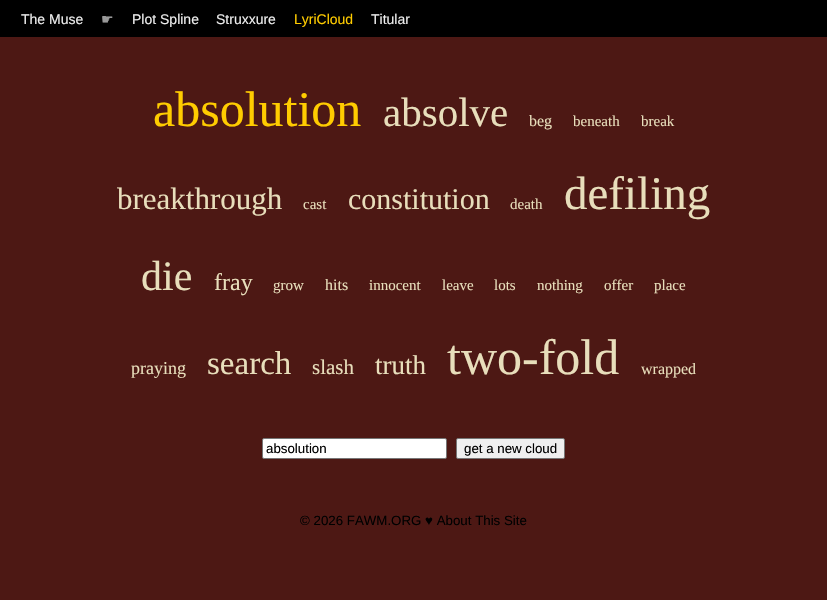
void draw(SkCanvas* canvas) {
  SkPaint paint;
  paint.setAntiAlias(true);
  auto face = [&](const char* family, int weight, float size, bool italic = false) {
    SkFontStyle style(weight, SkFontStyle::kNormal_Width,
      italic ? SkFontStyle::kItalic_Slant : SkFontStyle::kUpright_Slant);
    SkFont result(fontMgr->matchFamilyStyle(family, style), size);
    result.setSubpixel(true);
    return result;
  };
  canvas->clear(0xff4d1814);
  paint.setColor(0xff000000);
  canvas->drawRect(SkRect::MakeXYWH(0, 0, 827, 37), paint);
  paint.setColor(0xffffffff);
  canvas->drawRoundRect(SkRect::MakeXYWH(262.5f, 438.5f, 184, 20), 1.5f, 1.5f, paint);
  paint.setStroke(true);
  paint.setStrokeWidth(1);
  paint.setColor(0xff767676);
  canvas->drawRoundRect(SkRect::MakeXYWH(262.5f, 438.5f, 184, 20), 1.5f, 1.5f, paint);
  paint.setStroke(false);
  paint.setColor(0xffefefef);
  canvas->drawRoundRect(SkRect::MakeXYWH(456.5f, 438.5f, 108, 20), 1.5f, 1.5f, paint);
  paint.setStroke(true);
  paint.setColor(0xff767676);
  canvas->drawRoundRect(SkRect::MakeXYWH(456.5f, 438.5f, 108, 20), 1.5f, 1.5f, paint);
  auto f0 = face("Liberation Sans", 400, 14);
  paint.setStroke(false);
  paint.setColor(0xffeeeeee);
  canvas->drawString("The Muse", 21, 24, f0, paint);
  auto f1 = face("DejaVu Sans", 400, 14);
  paint.setColor(0xff999999);
  canvas->drawString("☛", 101, 24, f1, paint);
  paint.setColor(0xffeeeeee);
  canvas->drawString("Plot Spline", 132, 24, f0, paint);
  canvas->drawString("Struxxure", 216, 24, f0, paint);
  paint.setColor(0xffffcc00);
  canvas->drawString("LyriCloud", 294, 24, f0, paint);
  paint.setColor(0xffeeeeee);
  canvas->drawString("Titular", 371, 24, f0, paint);
  auto f2 = face("Liberation Serif", 400, 50);
  paint.setColor(0xffffcc00);
  canvas->drawString("absolution", 153, 126, f2, paint);
  auto f3 = face("Liberation Serif", 400, 41);
  paint.setColor(0xffe8debb);
  canvas->drawString("absolve", 383, 126, f3, paint);
  auto f4 = face("Liberation Serif", 400, 16);
  canvas->drawString("beg", 529, 126, f4, paint);
  auto f5 = face("Liberation Serif", 400, 15);
  canvas->drawString("beneath", 573, 126, f5, paint);
  canvas->drawString("break", 641, 126, f5, paint);
  auto f6 = face("Liberation Serif", 400, 31);
  canvas->drawString("breakthrough", 117, 209, f6, paint);
  canvas->drawString("cast", 303, 209, f5, paint);
  auto f7 = face("Liberation Serif", 400, 30);
  canvas->drawString("constitution", 348, 209, f7, paint);
  canvas->drawString("death", 510, 209, f5, paint);
  auto f8 = face("Liberation Serif", 400, 47);
  canvas->drawString("defiling", 564, 209, f8, paint);
  auto f9 = face("Liberation Serif", 400, 42);
  canvas->drawString("die", 141, 290, f9, paint);
  auto f10 = face("Liberation Serif", 400, 24);
  canvas->drawString("fray", 214, 290, f10, paint);
  canvas->drawString("grow", 273, 290, f5, paint);
  canvas->drawString("hits", 325, 290, f4, paint);
  {
    const struct { const char* s; float x, y; } items[] = {
      {"innocent", 369, 290},
      {"leave", 442, 290},
      {"lots", 494, 290},
      {"nothing", 537, 290},
      {"offer", 604, 290},
      {"place", 654, 290},
    };
    for (auto [s, x, y] : items) {
      canvas->drawString(s, x, y, f5, paint);
    }
  }
  auto f11 = face("Liberation Serif", 400, 18);
  canvas->drawString("praying", 131, 374, f11, paint);
  auto f12 = face("Liberation Serif", 400, 33);
  canvas->drawString("search", 207, 374, f12, paint);
  auto f13 = face("Liberation Serif", 400, 21);
  canvas->drawString("slash", 312, 374, f13, paint);
  auto f14 = face("Liberation Serif", 400, 27);
  canvas->drawString("truth", 375, 374, f14, paint);
  canvas->drawString("two-fold", 447, 374, f2, paint);
  canvas->drawString("wrapped", 641, 374, f4, paint);
  auto f15 = face("Liberation Sans", 400, 13.3f);
  paint.setColor(0xff000000);
  {
    const struct { const char* s; float x, y; } items[] = {
      {"absolution", 266, 453},
      {"get a new cloud", 464, 453},
      {"© 2026 FAWM.ORG ♥ About This Site", 300, 525},
    };
    for (auto [s, x, y] : items) {
      canvas->drawString(s, x, y, f15, paint);
    }
  }
}
